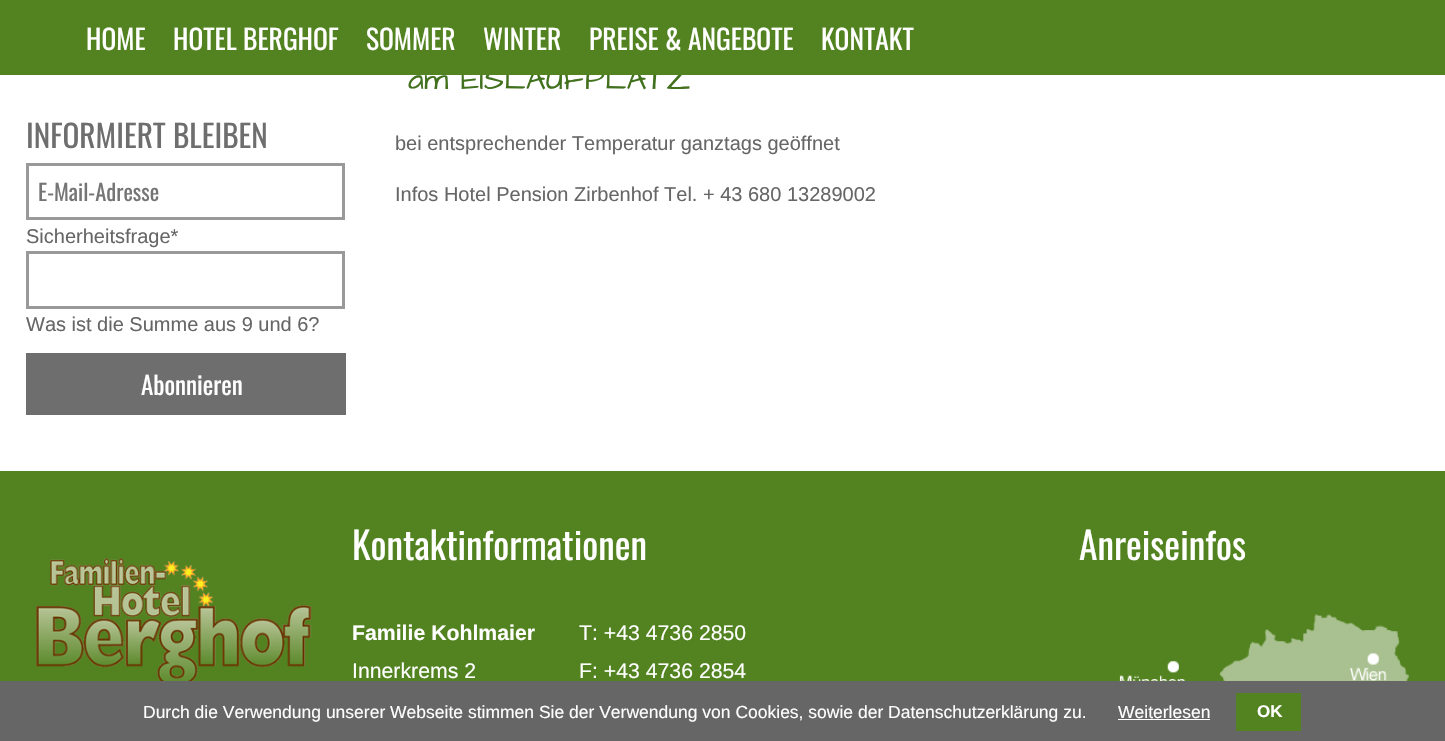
void draw(SkCanvas* canvas) {
  SkPaint paint;
  paint.setAntiAlias(true);
  auto face = [&](const char* family, int weight, float size, bool italic = false) {
    SkFontStyle style(weight, SkFontStyle::kNormal_Width,
      italic ? SkFontStyle::kItalic_Slant : SkFontStyle::kUpright_Slant);
    SkFont result(fontMgr->matchFamilyStyle(family, style), size);
    result.setSubpixel(true);
    return result;
  };
  auto paste = [&](const char* path, float x, float y, float w, float h) {
    auto image = SkImages::DeferredFromEncodedData(SkData::MakeFromFileName(path));
    canvas->drawImageRect(image, SkRect::MakeXYWH(x, y, w, h), SkSamplingOptions());
  };
  canvas->clear(0xffffffff);
  paint.setStroke(true);
  paint.setStrokeWidth(3);
  paint.setColor(0xff999999);
  canvas->drawRect(SkRect::MakeXYWH(27.5f, 164.5f, 316, 54), paint);
  canvas->drawRect(SkRect::MakeXYWH(27.5f, 252.5f, 316, 55), paint);
  paint.setStroke(false);
  paint.setColor(0xff6e6e6e);
  canvas->drawRect(SkRect::MakeXYWH(26, 353, 320, 62), paint);
  paint.setColor(0xff528320);
  canvas->drawRect(SkRect::MakeXYWH(0, 471, 1445, 210), paint);
  paste("img/1.png", 1119, 614, 290, 67);
  paste("img/2.png", 36, 558, 276, 123);
  {
    const struct { float x, y, w, h; SkColor color; } items[] = {
      {0, 681, 1445, 60, 0xff666666},
      {1118, 719, 92, 1, 0xffffffff},
      {1236, 693, 65, 38, 0xff528320},
    };
    for (auto [x, y, w, h, color] : items) {
      paint.setColor(color);
      canvas->drawRect(SkRect::MakeXYWH(x, y, w, h), paint);
    }
  }
  auto f0 = face("Oswald", 400, 31.25f);
  paint.setColor(0xff6e6e6e);
  canvas->drawString("INFORMIERT BLEIBEN", 26, 148, f0, paint);
  auto f1 = face("Oswald", 400, 22.5f);
  paint.setColor(0xff757575);
  canvas->drawString("E-Mail-Adresse", 38, 201, f1, paint);
  auto f2 = face("Liberation Sans", 400, 20);
  paint.setColor(0xff666666);
  canvas->drawString("Sicherheitsfrage*", 26, 243, f2, paint);
  canvas->drawString("Was ist die Summe aus 9 und 6?", 26, 331, f2, paint);
  auto f3 = face("Oswald", 400, 25);
  paint.setColor(0xffffffff);
  canvas->drawString("Abonnieren", 141, 395, f3, paint);
  auto f4 = face("Architects Daughter", 400, 31.25f);
  paint.setColor(0xff42711e);
  canvas->drawString("am EISLAUFPLATZ", 408, 89, f4, paint);
  paint.setColor(0xff528320);
  canvas->drawRect(SkRect::MakeXYWH(0, 0, 1445, 75), paint);
  auto f5 = face("Oswald", 400, 27.5f);
  paint.setColor(0xffffffff);
  {
    const struct { const char* s; float x, y; } items[] = {
      {"KONTAKT", 821, 50},
      {"PREISE & ANGEBOTE", 589, 50},
      {"WINTER", 483, 50},
      {"SOMMER", 366, 50},
      {"HOTEL BERGHOF", 173, 50},
      {"HOME", 86, 50},
    };
    for (auto [s, x, y] : items) {
      canvas->drawString(s, x, y, f5, paint);
    }
  }
  paint.setColor(0xff666666);
  canvas->drawString("bei entsprechender Temperatur ganztags geöffnet", 395, 150, f2, paint);
  canvas->drawString("Infos Hotel Pension Zirbenhof Tel. + 43 680 13289002", 395, 201, f2, paint);
  auto f6 = face("Oswald", 400, 37.5f);
  paint.setColor(0xffffffff);
  canvas->drawString("Kontaktinformationen", 352, 560, f6, paint);
  auto f7 = face("Liberation Sans", 700, 21.25f);
  canvas->drawString("Familie Kohlmaier", 352, 640, f7, paint);
  auto f8 = face("Liberation Sans", 400, 21.25f);
  {
    const struct { const char* s; float x, y; } items[] = {
      {"Innerkrems 2", 352, 678},
      {"T: +43 4736 2850", 579, 640},
      {"F: +43 4736 2854", 579, 678},
    };
    for (auto [s, x, y] : items) {
      canvas->drawString(s, x, y, f8, paint);
    }
  }
  canvas->drawString("Anreiseinfos", 1079, 560, f6, paint);
  auto f9 = face("Liberation Sans", 400, 17.5f);
  canvas->drawString("Durch die Verwendung unserer Webseite stimmen Sie der Verwendung von Cookies, sowie der Datenschutzerklärung zu.", 143, 718, f9, paint);
  canvas->drawString("Weiterlesen", 1118, 718, f9, paint);
  auto f10 = face("Liberation Sans", 700, 17);
  canvas->drawString("OK", 1257, 717, f10, paint);
}
